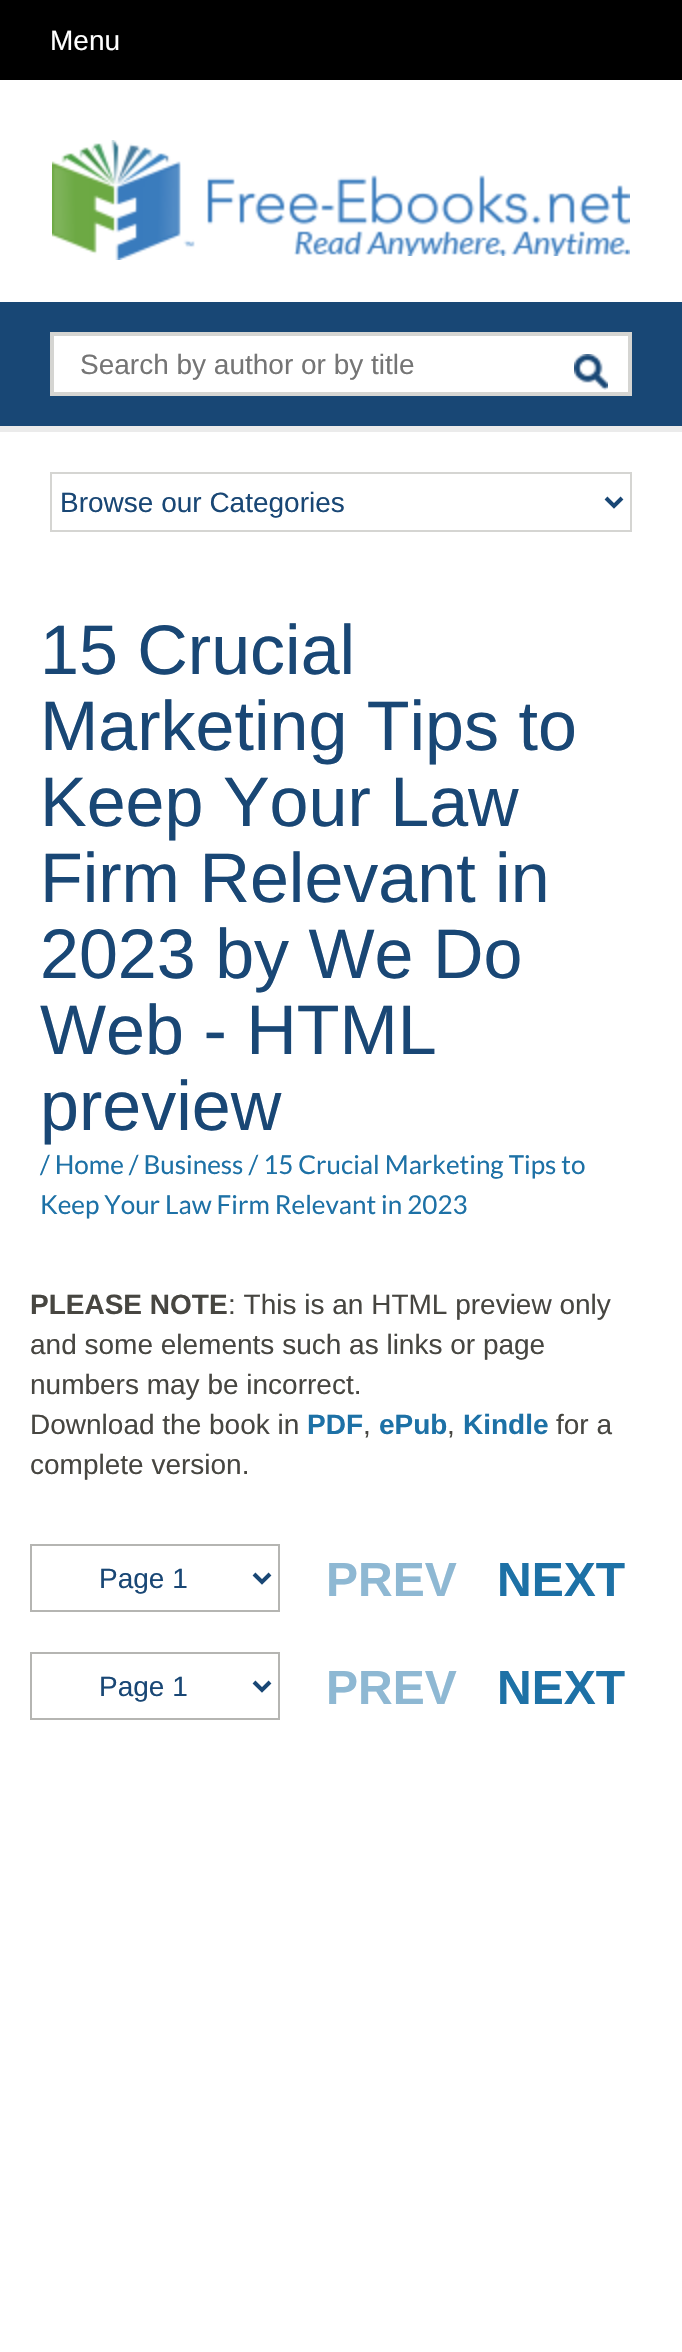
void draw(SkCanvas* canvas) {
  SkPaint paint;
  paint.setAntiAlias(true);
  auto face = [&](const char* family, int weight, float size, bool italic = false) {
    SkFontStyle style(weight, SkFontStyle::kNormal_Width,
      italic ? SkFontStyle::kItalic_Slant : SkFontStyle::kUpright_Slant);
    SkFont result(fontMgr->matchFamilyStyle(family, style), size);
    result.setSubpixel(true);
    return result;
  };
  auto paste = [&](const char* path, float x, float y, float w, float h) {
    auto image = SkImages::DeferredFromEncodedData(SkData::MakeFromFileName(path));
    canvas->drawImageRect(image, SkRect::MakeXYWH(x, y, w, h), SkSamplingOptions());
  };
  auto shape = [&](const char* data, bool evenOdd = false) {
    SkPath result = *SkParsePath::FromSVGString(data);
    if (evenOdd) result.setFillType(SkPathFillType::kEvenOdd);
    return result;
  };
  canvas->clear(0xffffffff);
  paint.setColor(0xff000000);
  canvas->drawRect(SkRect::MakeXYWH(0, 0, 682, 80), paint);
  paint.setColor(0xffebebeb);
  canvas->drawRect(SkRect::MakeXYWH(0, 426, 682, 6), paint);
  paste("img/1.png", 52, 140, 578, 120);
  paste("img/2.png", 294, 231, 336, 25);
  {
    const struct { float x, y, w, h; SkColor color; } items[] = {
      {0, 302, 682, 124, 0xff184775},
      {54, 336, 574, 56, 0xffffffff},
      {50, 332, 582, 4, 0xffd5d5d2},
      {50, 392, 524, 4, 0xffd5d5d2},
      {50, 332, 4, 64, 0xffd5d5d2},
      {628, 332, 4, 64, 0xffd5d5d2},
      {574, 392, 58, 4, 0xffd5d5d2},
    };
    for (auto [x, y, w, h, color] : items) {
      paint.setColor(color);
      canvas->drawRect(SkRect::MakeXYWH(x, y, w, h), paint);
    }
  }
  paste("img/3.png", 574, 354, 34, 36);
  paint.setStroke(true);
  paint.setStrokeWidth(2);
  canvas->drawRect(SkRect::MakeXYWH(51, 473, 580, 58), paint);
  paint.setStrokeWidth(4);
  paint.setColor(0xff194775);
  canvas->drawPath(shape("M606 498L614 506L622 498"), paint);
  paint.setStrokeWidth(2);
  paint.setColor(0xffb5b5b2);
  canvas->drawRect(SkRect::MakeXYWH(31, 1545, 248, 66), paint);
  paint.setStrokeWidth(4);
  paint.setColor(0xff194775);
  canvas->drawPath(shape("M254 1574L262 1582L270 1574"), paint);
  paint.setStrokeWidth(2);
  paint.setColor(0xffb5b5b2);
  canvas->drawRect(SkRect::MakeXYWH(31, 1653, 248, 66), paint);
  paint.setStrokeWidth(4);
  paint.setColor(0xff194775);
  canvas->drawPath(shape("M254 1682L262 1690L270 1682"), paint);
  auto f0 = face("Liberation Sans", 400, 28);
  paint.setStroke(false);
  paint.setColor(0xffffffff);
  canvas->drawString("Menu", 50, 50, f0, paint);
  paint.setColor(0xff757575);
  canvas->drawString("Search by author or by title", 80, 374, f0, paint);
  paint.setColor(0xff194775);
  canvas->drawString("Browse our Categories", 60, 512, f0, paint);
  auto f1 = face("Liberation Sans", 400, 70);
  {
    const struct { const char* s; float x, y; } items[] = {
      {"15 Crucial", 40, 674},
      {"Marketing Tips to", 40, 750},
      {"Keep Your Law", 40, 826},
      {"Firm Relevant in", 40, 902},
      {"2023 by We Do", 40, 978},
      {"Web - HTML", 40, 1054},
      {"preview", 40, 1130},
    };
    for (auto [s, x, y] : items) {
      canvas->drawString(s, x, y, f1, paint);
    }
  }
  auto f2 = face("Lato", 400, 26);
  paint.setColor(0xff1d71a6);
  canvas->drawString("/ Home / Business / 15 Crucial Marketing Tips to", 40, 1174, f2, paint);
  canvas->drawString("Keep Your Law Firm Relevant in 2023", 40, 1214, f2, paint);
  auto f3 = face("Liberation Sans", 700, 28);
  paint.setColor(0xff474641);
  canvas->drawString("PLEASE NOTE", 30, 1314, f3, paint);
  {
    const struct { const char* s; float x, y; } items[] = {
      {": This is an HTML preview only", 228, 1314},
      {"and some elements such as links or page", 30, 1354},
      {"numbers may be incorrect.", 30, 1394},
      {"Download the book in", 30, 1434},
    };
    for (auto [s, x, y] : items) {
      canvas->drawString(s, x, y, f0, paint);
    }
  }
  paint.setColor(0xff1d71a6);
  canvas->drawString("PDF", 307, 1434, f3, paint);
  paint.setColor(0xff474641);
  canvas->drawString(",", 363, 1434, f0, paint);
  paint.setColor(0xff1d71a6);
  canvas->drawString("ePub", 379, 1434, f3, paint);
  paint.setColor(0xff474641);
  canvas->drawString(",", 447, 1434, f0, paint);
  paint.setColor(0xff1d71a6);
  canvas->drawString("Kindle", 463, 1434, f3, paint);
  paint.setColor(0xff474641);
  canvas->drawString("for a", 556, 1434, f0, paint);
  canvas->drawString("complete version.", 30, 1474, f0, paint);
  paint.setColor(0xff194775);
  canvas->drawString("Page 1", 99, 1588, f0, paint);
  auto f4 = face("Liberation Sans", 700, 48);
  paint.setColor(0xff8eb8d3);
  canvas->drawString("PREV", 326, 1596, f4, paint);
  paint.setColor(0xff1d71a6);
  canvas->drawString("NEXT", 497, 1596, f4, paint);
  paint.setColor(0xff194775);
  canvas->drawString("Page 1", 99, 1696, f0, paint);
  paint.setColor(0xff8eb8d3);
  canvas->drawString("PREV", 326, 1704, f4, paint);
  paint.setColor(0xff1d71a6);
  canvas->drawString("NEXT", 497, 1704, f4, paint);
}
